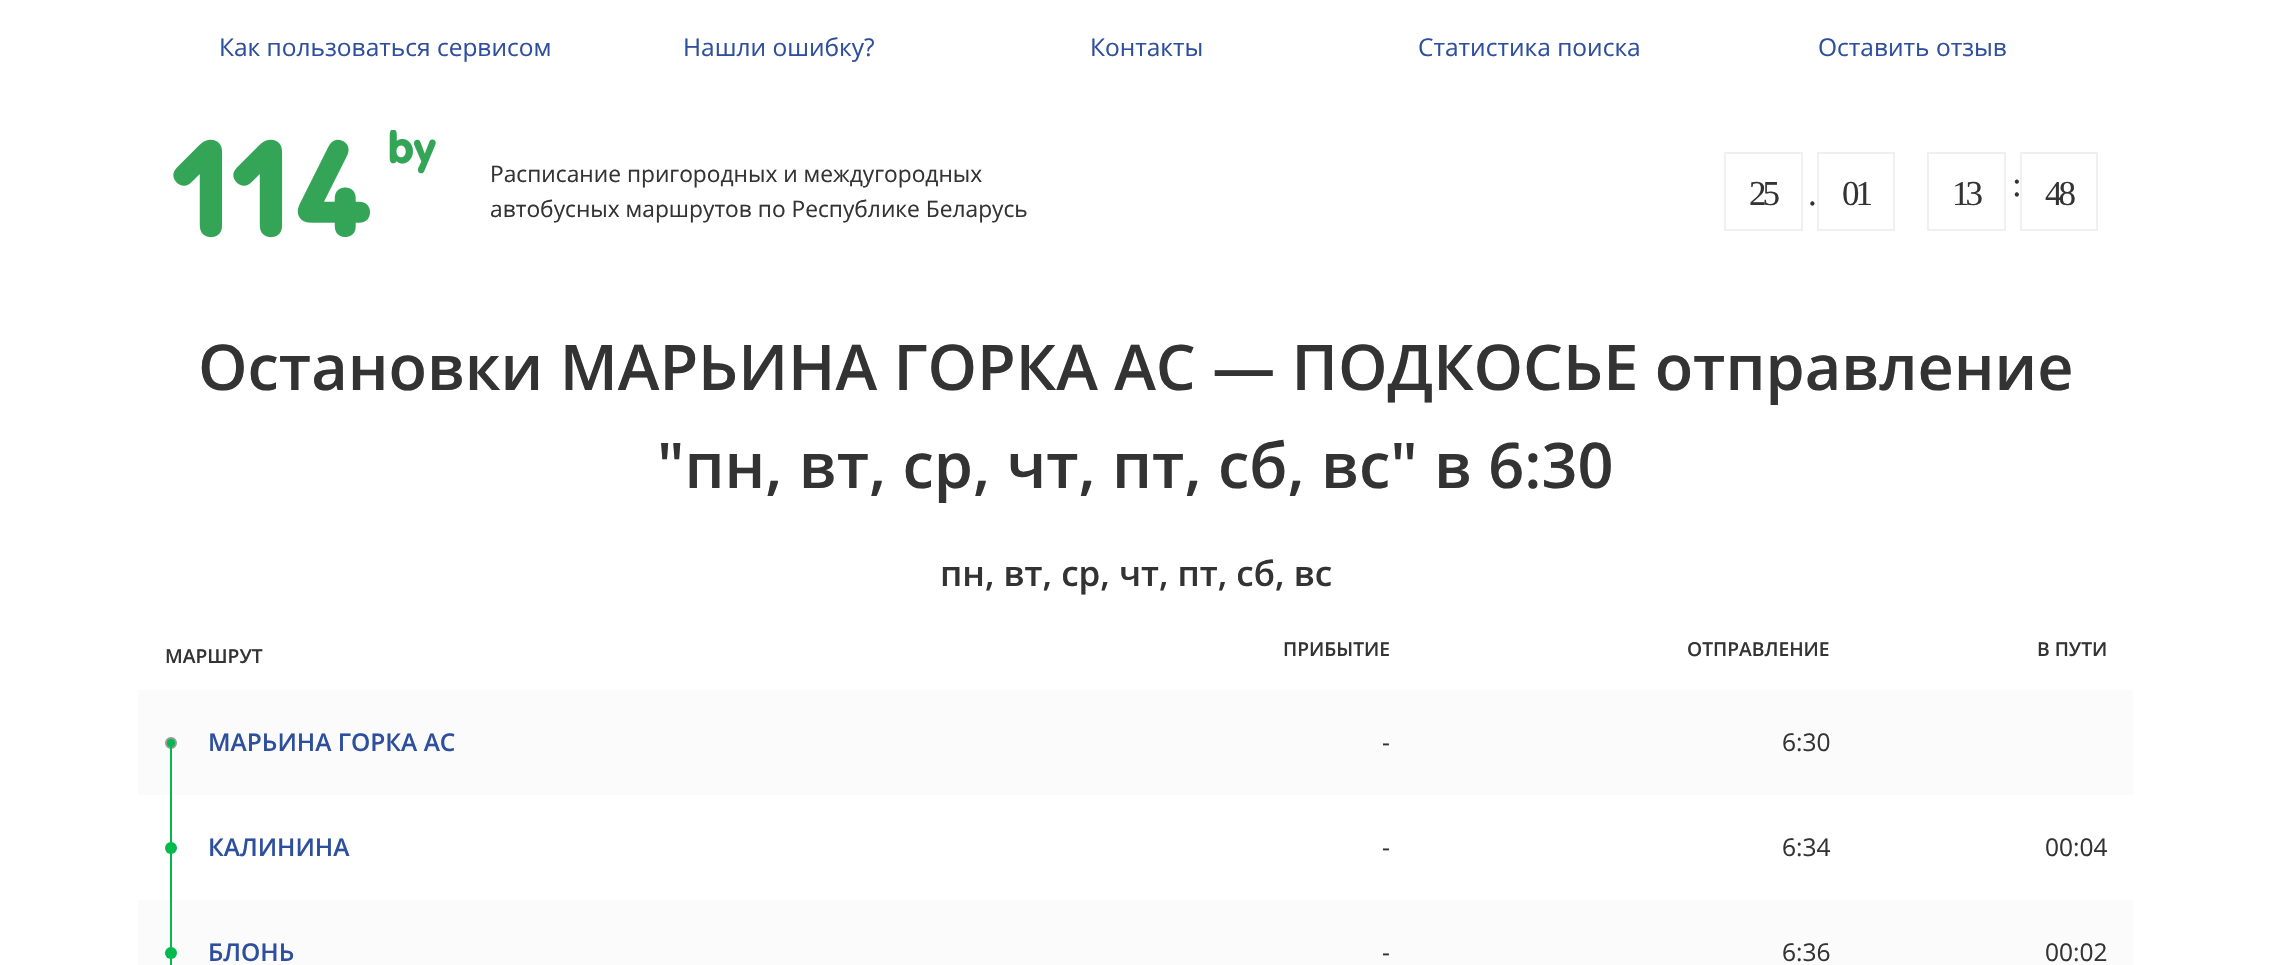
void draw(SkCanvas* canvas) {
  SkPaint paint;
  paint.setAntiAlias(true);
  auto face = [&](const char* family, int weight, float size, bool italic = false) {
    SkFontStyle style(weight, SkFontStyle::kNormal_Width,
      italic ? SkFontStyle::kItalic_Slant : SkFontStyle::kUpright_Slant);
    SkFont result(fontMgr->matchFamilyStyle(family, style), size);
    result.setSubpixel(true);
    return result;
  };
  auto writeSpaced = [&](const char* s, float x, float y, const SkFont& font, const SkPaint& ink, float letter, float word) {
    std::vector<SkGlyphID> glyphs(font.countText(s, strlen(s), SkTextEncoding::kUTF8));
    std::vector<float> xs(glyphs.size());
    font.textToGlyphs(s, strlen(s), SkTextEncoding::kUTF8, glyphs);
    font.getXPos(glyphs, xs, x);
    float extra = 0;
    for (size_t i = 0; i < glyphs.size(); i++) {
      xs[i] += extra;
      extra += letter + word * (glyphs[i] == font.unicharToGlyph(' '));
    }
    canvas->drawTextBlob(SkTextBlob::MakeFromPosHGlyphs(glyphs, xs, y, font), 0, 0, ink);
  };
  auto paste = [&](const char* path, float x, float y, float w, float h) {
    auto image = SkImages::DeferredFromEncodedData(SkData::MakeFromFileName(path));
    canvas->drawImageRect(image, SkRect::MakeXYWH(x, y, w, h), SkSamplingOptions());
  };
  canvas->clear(0xffffffff);
  paste("img/1.png", 173, 130, 263, 108);
  paint.setStroke(true);
  paint.setStrokeWidth(2);
  paint.setColor(0xfff0f0f0);
  canvas->drawRect(SkRect::MakeXYWH(1725, 153, 77, 77), paint);
  canvas->drawRect(SkRect::MakeXYWH(1818, 153, 76, 77), paint);
  canvas->drawRect(SkRect::MakeXYWH(1928, 153, 77, 77), paint);
  canvas->drawRect(SkRect::MakeXYWH(2021, 153, 76, 77), paint);
  paint.setStroke(false);
  paint.setColor(0xfffbfbfb);
  canvas->drawRect(SkRect::MakeXYWH(138, 690, 1995, 105), paint);
  paint.setColor(0xff00ba4e);
  canvas->drawCircle(171, 743, 5, paint);
  paint.setStroke(true);
  paint.setColor(0xff999999);
  canvas->drawCircle(171, 743, 5, paint);
  paint.setStroke(false);
  paint.setColor(0xff00ba4e);
  canvas->drawCircle(171, 848, 6, paint);
  canvas->drawRect(SkRect::MakeXYWH(170, 747, 2, 98), paint);
  paint.setColor(0xfffbfbfb);
  canvas->drawRect(SkRect::MakeXYWH(138, 900, 1995, 65), paint);
  paint.setColor(0xff00ba4e);
  canvas->drawCircle(171, 953, 6, paint);
  canvas->drawRect(SkRect::MakeXYWH(170, 957, 2, 8), paint);
  canvas->drawRect(SkRect::MakeXYWH(170, 852, 2, 98), paint);
  auto f0 = face("Open Sans", 400, 24.5f);
  paint.setColor(0xff2e4f9d);
  {
    const struct { const char* s; float x, y; } items[] = {
      {"Как пользоваться сервисом", 219, 56},
      {"Нашли ошибку?", 683, 56},
      {"Контакты", 1090, 56},
      {"Статистика поиска", 1418, 56},
      {"Оставить отзыв", 1818, 56},
    };
    for (auto [s, x, y] : items) {
      canvas->drawString(s, x, y, f0, paint);
    }
  }
  auto f1 = face("Open Sans", 400, 22.75f);
  paint.setColor(0xff333333);
  canvas->drawString("Расписание пригородных и междугородных", 490, 182, f1, paint);
  canvas->drawString("автобусных маршрутов по Республике Беларусь", 490, 217, f1, paint);
  auto f2 = face("Liberation Serif", 400, 35);
  {
    const struct { const char* s; float x, y; } items[] = {
      {"25", 1749, 205},
      {".", 1808, 205},
      {"01", 1842, 205},
      {"13", 1952, 205},
      {":", 2012, 196},
      {"48", 2045, 205},
    };
    for (auto [s, x, y] : items) {
      writeSpaced(s, x, y, f2, paint, -4, 0);
    }
  }
  auto f3 = face("Open Sans", 600, 63);
  canvas->drawString("Остановки МАРЬИНА ГОРКА АС — ПОДКОСЬЕ отправление", 198, 390, f3, paint);
  canvas->drawString("\"пн, вт, ср, чт, пт, сб, вс\" в 6:30", 657, 488, f3, paint);
  auto f4 = face("Open Sans", 600, 35);
  canvas->drawString("пн, вт, ср, чт, пт, сб, вс", 940, 586, f4, paint);
  auto f5 = face("Open Sans", 600, 19.25f);
  {
    const struct { const char* s; float x, y; } items[] = {
      {"МАРШРУТ", 165, 663},
      {"ПРИБЫТИЕ", 1283, 656},
      {"ОТПРАВЛЕНИЕ", 1687, 656},
      {"В ПУТИ", 2037, 656},
    };
    for (auto [s, x, y] : items) {
      canvas->drawString(s, x, y, f5, paint);
    }
  }
  auto f6 = face("Open Sans", 600, 24.5f);
  paint.setColor(0xff2e4f9d);
  canvas->drawString("МАРЬИНА ГОРКА АС", 208, 751, f6, paint);
  paint.setColor(0xff333333);
  canvas->drawString("-", 1382, 751, f0, paint);
  canvas->drawString("6:30", 1782, 751, f0, paint);
  paint.setColor(0xff2e4f9d);
  canvas->drawString("КАЛИНИНА", 208, 856, f6, paint);
  paint.setColor(0xff333333);
  {
    const struct { const char* s; float x, y; } items[] = {
      {"-", 1382, 856},
      {"6:34", 1782, 856},
      {"00:04", 2045, 856},
    };
    for (auto [s, x, y] : items) {
      canvas->drawString(s, x, y, f0, paint);
    }
  }
  paint.setColor(0xff2e4f9d);
  canvas->drawString("БЛОНЬ", 208, 961, f6, paint);
  paint.setColor(0xff333333);
  {
    const struct { const char* s; float x, y; } items[] = {
      {"-", 1382, 961},
      {"6:36", 1782, 961},
      {"00:02", 2045, 961},
    };
    for (auto [s, x, y] : items) {
      canvas->drawString(s, x, y, f0, paint);
    }
  }
}
